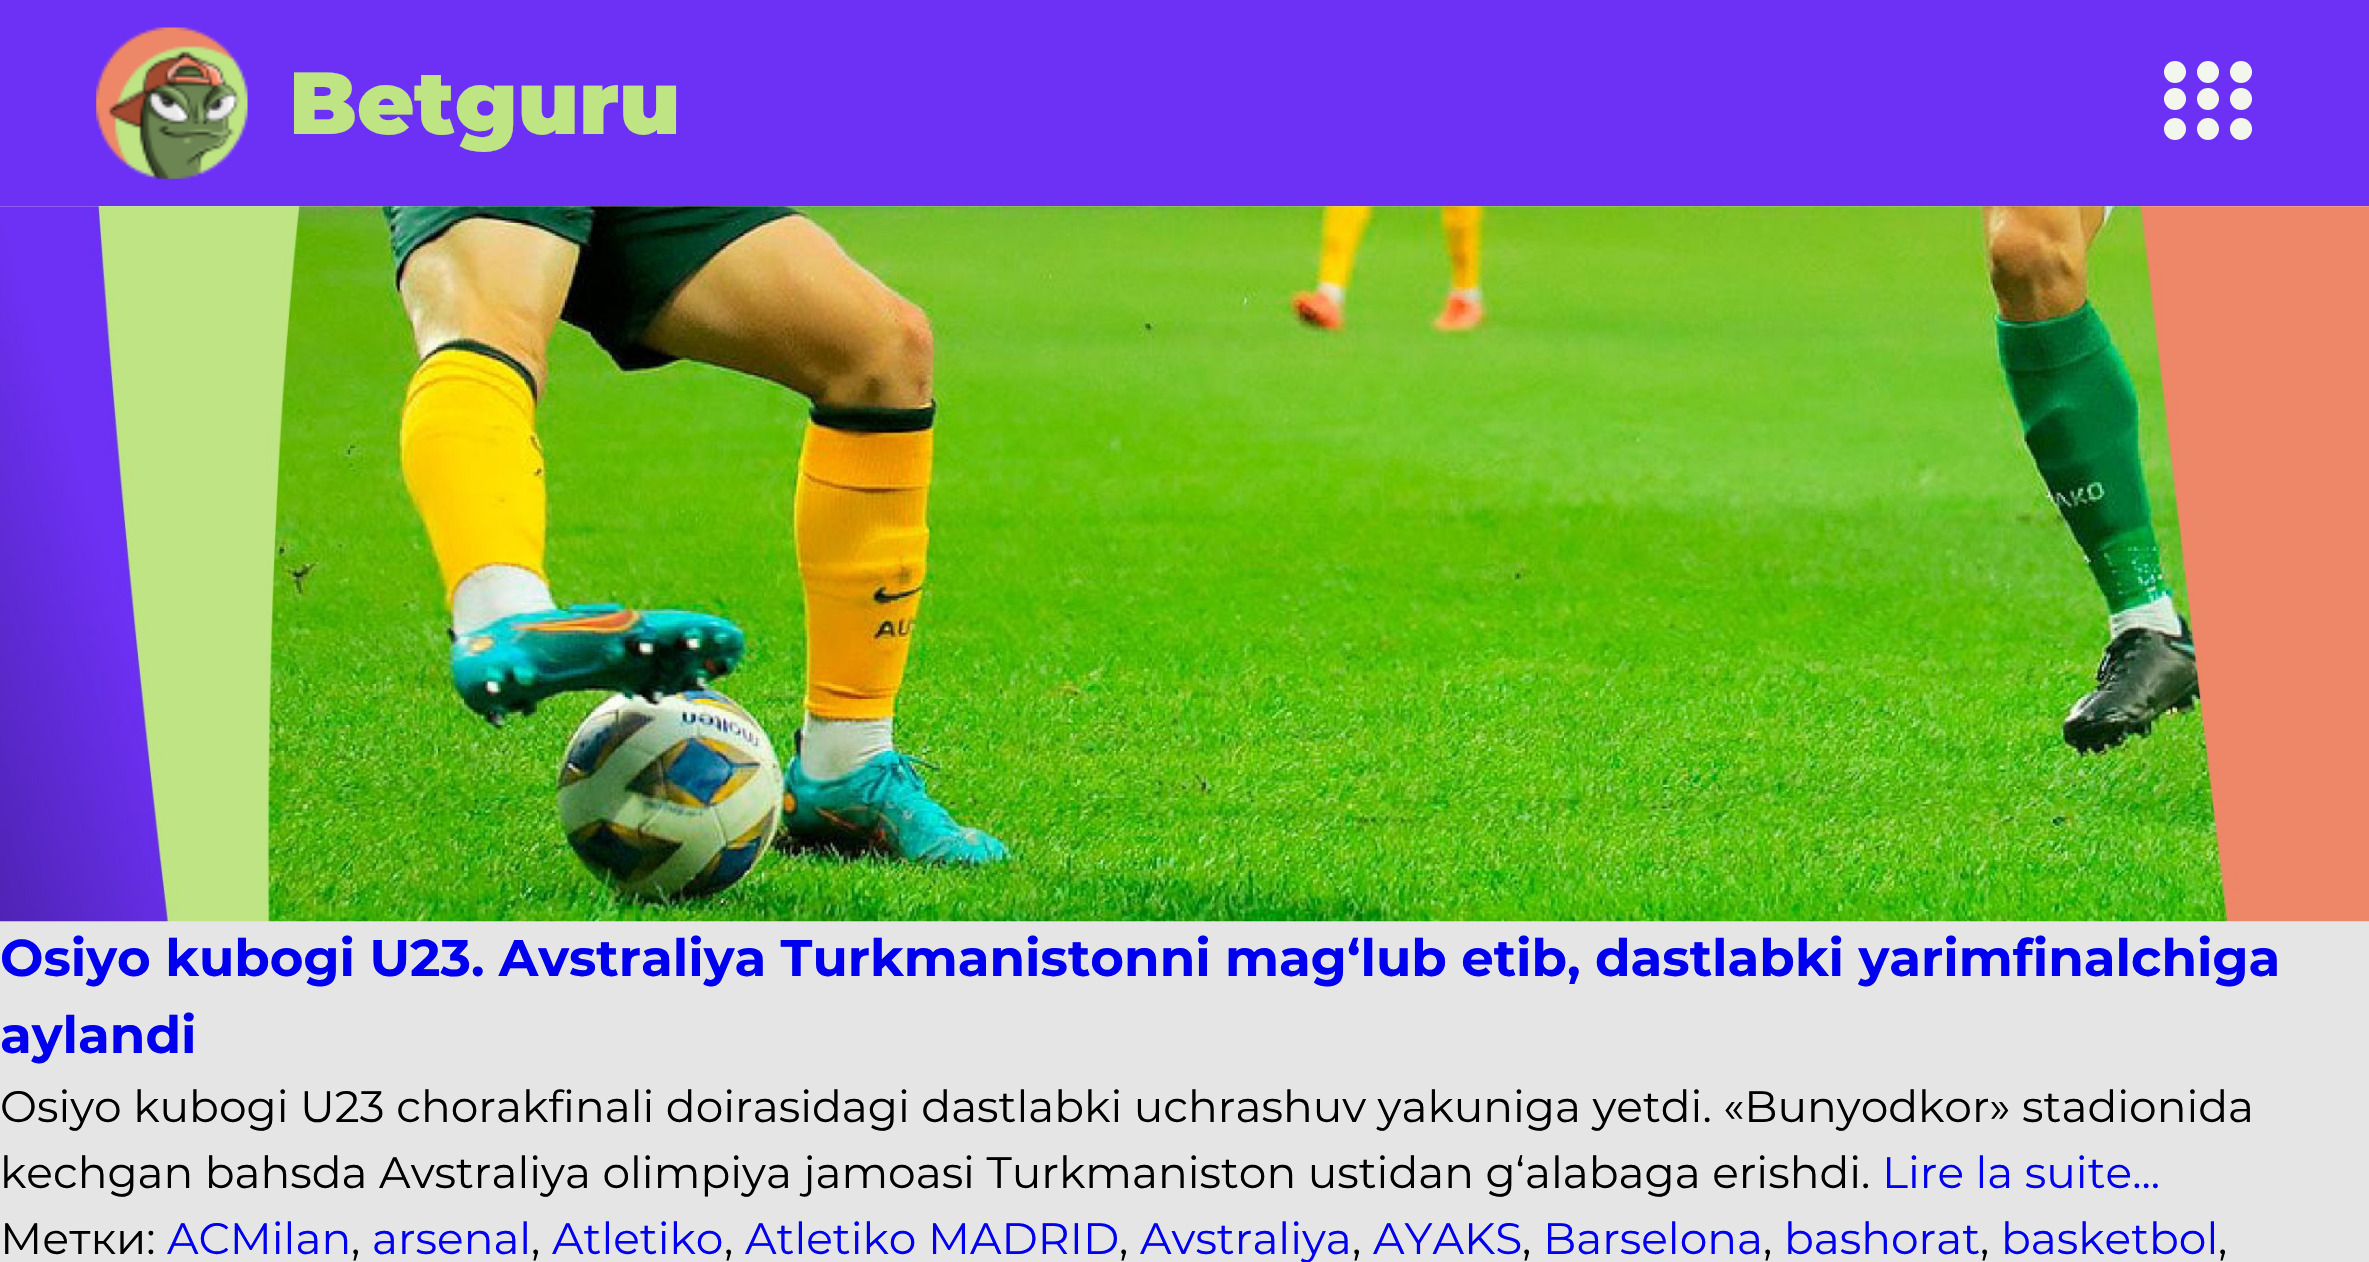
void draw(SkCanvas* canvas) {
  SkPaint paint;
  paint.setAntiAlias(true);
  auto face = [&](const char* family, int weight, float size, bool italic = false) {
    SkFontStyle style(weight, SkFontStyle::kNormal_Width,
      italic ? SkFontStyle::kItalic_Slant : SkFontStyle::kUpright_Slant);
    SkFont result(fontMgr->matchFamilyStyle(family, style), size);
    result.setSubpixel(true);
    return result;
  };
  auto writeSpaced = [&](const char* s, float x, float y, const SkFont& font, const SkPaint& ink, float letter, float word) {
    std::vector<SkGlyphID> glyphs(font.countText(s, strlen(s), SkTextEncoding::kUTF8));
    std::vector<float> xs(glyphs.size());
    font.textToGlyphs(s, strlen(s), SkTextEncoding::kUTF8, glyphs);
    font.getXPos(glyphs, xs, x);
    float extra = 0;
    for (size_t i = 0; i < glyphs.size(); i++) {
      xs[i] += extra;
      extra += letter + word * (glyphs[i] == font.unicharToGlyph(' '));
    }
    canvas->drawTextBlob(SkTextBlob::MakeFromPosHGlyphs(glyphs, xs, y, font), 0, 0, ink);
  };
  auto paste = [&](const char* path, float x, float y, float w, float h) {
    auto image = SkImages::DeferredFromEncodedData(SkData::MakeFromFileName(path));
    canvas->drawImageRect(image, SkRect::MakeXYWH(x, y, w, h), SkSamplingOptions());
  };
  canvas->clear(0xffe5e5e5);
  paint.setColor(0xff6d31f5);
  canvas->drawRect(SkRect::MakeXYWH(0, 0, 2369, 206), paint);
  paste("img/1.png", 96, 27, 152, 152);
  paint.setColor(0xfff2f6ec);
  canvas->drawCircle(2175, 72, 11, paint);
  canvas->drawCircle(2208, 72, 11, paint);
  canvas->drawCircle(2241, 72, 11, paint);
  canvas->drawCircle(2175, 99, 11, paint);
  canvas->drawCircle(2208, 99, 11, paint);
  canvas->drawCircle(2241, 99, 11, paint);
  canvas->drawCircle(2175, 129, 11, paint);
  canvas->drawCircle(2208, 129, 11, paint);
  canvas->drawCircle(2241, 129, 11, paint);
  paste("img/2.png", 0, 206, 2369, 716);
  auto f0 = face("Montserrat", 900, 88);
  paint.setColor(0xffbee484);
  canvas->drawString("Betguru", 289, 134, f0, paint);
  auto f1 = face("Montserrat", 700, 51.5f);
  paint.setColor(0xff0000ee);
  writeSpaced("Osiyo kubogi U23. Avstraliya Turkmanistonni mag‘lub etib, dastlabki yarimfinalchiga", 0, 976, f1, paint, 0, -0.25f);
  canvas->drawString("aylandi", 0, 1053, f1, paint);
  auto f2 = face("Montserrat", 400, 44);
  paint.setColor(0xff000000);
  canvas->drawString("Osiyo kubogi U23 chorakfinali doirasidagi dastlabki uchrashuv yakuniga yetdi. «Bunyodkor» stadionida", 0, 1122, f2, paint);
  canvas->drawString("kechgan bahsda Avstraliya olimpiya jamoasi Turkmaniston ustidan g‘alabaga erishdi.", 0, 1188, f2, paint);
  paint.setColor(0xff0000ee);
  canvas->drawString("Lire la suite...", 1882, 1188, f2, paint);
  paint.setColor(0xff000000);
  canvas->drawString("Метки:", 0, 1254, f2, paint);
  paint.setColor(0xff0000ee);
  canvas->drawString("ACMilan", 167, 1254, f2, paint);
  paint.setColor(0xff000000);
  canvas->drawString(",", 351, 1254, f2, paint);
  paint.setColor(0xff0000ee);
  canvas->drawString("arsenal", 372, 1254, f2, paint);
  paint.setColor(0xff000000);
  canvas->drawString(",", 531, 1254, f2, paint);
  paint.setColor(0xff0000ee);
  canvas->drawString("Atletiko", 552, 1254, f2, paint);
  paint.setColor(0xff000000);
  canvas->drawString(",", 724, 1254, f2, paint);
  paint.setColor(0xff0000ee);
  canvas->drawString("Atletiko MADRID", 745, 1254, f2, paint);
  paint.setColor(0xff000000);
  canvas->drawString(",", 1119, 1254, f2, paint);
  paint.setColor(0xff0000ee);
  canvas->drawString("Avstraliya", 1140, 1254, f2, paint);
  paint.setColor(0xff000000);
  canvas->drawString(",", 1352, 1254, f2, paint);
  paint.setColor(0xff0000ee);
  canvas->drawString("AYAKS", 1373, 1254, f2, paint);
  paint.setColor(0xff000000);
  canvas->drawString(",", 1522, 1254, f2, paint);
  paint.setColor(0xff0000ee);
  canvas->drawString("Barselona", 1543, 1254, f2, paint);
  paint.setColor(0xff000000);
  canvas->drawString(",", 1763, 1254, f2, paint);
  paint.setColor(0xff0000ee);
  canvas->drawString("bashorat", 1784, 1254, f2, paint);
  paint.setColor(0xff000000);
  canvas->drawString(",", 1980, 1254, f2, paint);
  paint.setColor(0xff0000ee);
  canvas->drawString("basketbol", 2001, 1254, f2, paint);
  paint.setColor(0xff000000);
  canvas->drawString(",", 2218, 1254, f2, paint);
}
